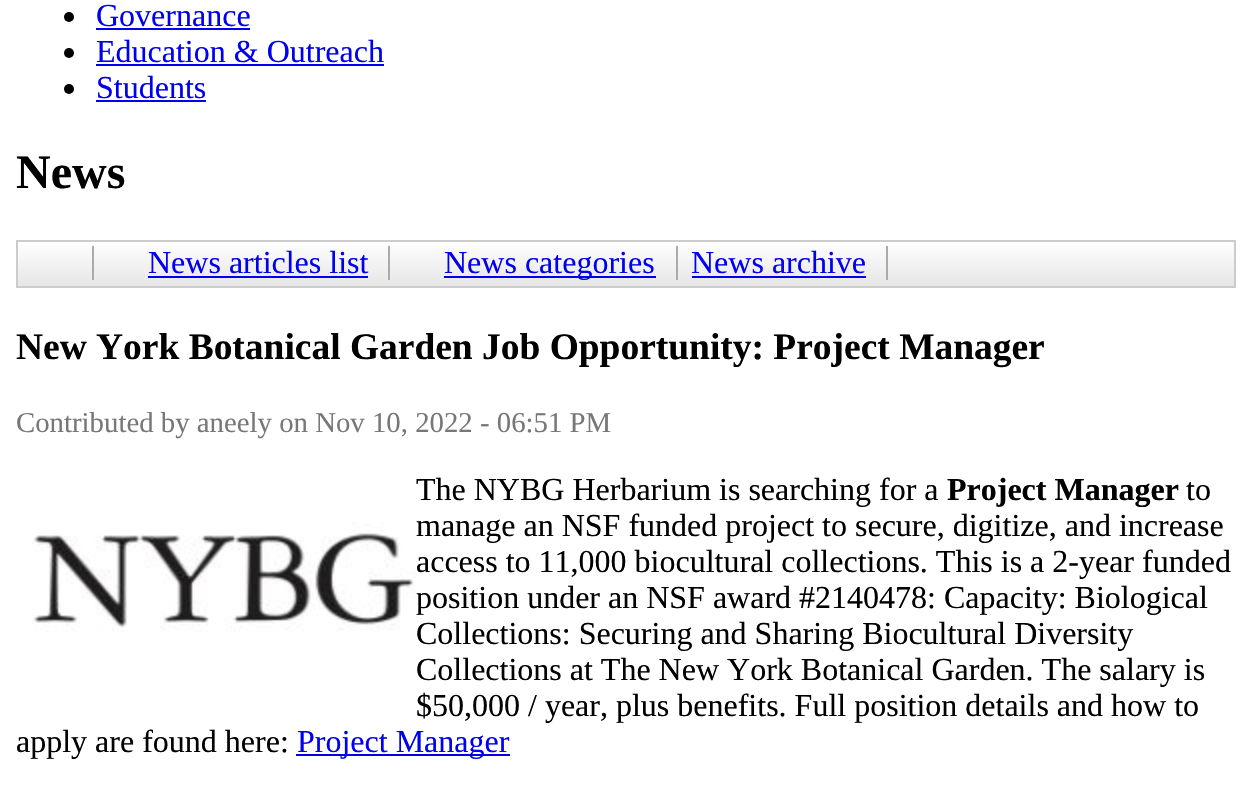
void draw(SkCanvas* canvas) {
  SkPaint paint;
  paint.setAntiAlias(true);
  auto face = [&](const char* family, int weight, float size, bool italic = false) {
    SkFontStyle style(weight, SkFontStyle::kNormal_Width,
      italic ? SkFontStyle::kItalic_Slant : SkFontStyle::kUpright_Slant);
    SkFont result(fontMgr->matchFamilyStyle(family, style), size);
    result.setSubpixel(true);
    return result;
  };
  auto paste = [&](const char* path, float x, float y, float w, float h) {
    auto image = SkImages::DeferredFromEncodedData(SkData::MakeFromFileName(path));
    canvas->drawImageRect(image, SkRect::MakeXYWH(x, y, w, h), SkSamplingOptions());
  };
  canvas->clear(0xffffffff);
  paint.setColor(0xff000000);
  canvas->drawCircle(69, 17, 5, paint);
  paint.setColor(0xff0000ee);
  canvas->drawRect(SkRect::MakeXYWH(96, 28, 154, 2), paint);
  paint.setColor(0xff000000);
  canvas->drawCircle(69, 53, 5, paint);
  paint.setColor(0xff0000ee);
  canvas->drawRect(SkRect::MakeXYWH(96, 64, 288, 2), paint);
  paint.setColor(0xff000000);
  canvas->drawCircle(69, 89, 5, paint);
  paint.setColor(0xff0000ee);
  canvas->drawRect(SkRect::MakeXYWH(96, 100, 110, 2), paint);
  {
    const SkColor colors[] = {0xfffefefe, 0xffe6e6e6};
    const float stops[] = {0, 1};
    const SkPoint ends[] = {{626, 242}, {626, 286}};
    paint.setShader(SkGradientShader::MakeLinear(ends, colors, stops, 2, SkTileMode::kClamp));
    paint.setAlpha(255);
  }
  canvas->drawRect(SkRect::MakeXYWH(18, 245, 1216, 41), paint);
  paint.setStroke(true);
  paint.setStrokeWidth(2);
  paint.setShader(nullptr);
  paint.setColor(0xffcccccc);
  canvas->drawRect(SkRect::MakeXYWH(17, 241, 1218, 46), paint);
  paint.setStroke(false);
  {
    const struct { float x, y, w, h; SkColor color; } items[] = {
      {92, 246, 2, 34, 0xffaaaaaa},
      {388, 246, 2, 34, 0xffaaaaaa},
      {148, 276, 220, 2, 0xff0000ee},
      {676, 246, 2, 34, 0xffaaaaaa},
      {444, 276, 212, 2, 0xff0000ee},
      {886, 246, 2, 34, 0xffaaaaaa},
      {692, 276, 174, 2, 0xff0000ee},
      {296, 754, 214, 2, 0xff0000ee},
    };
    for (auto [x, y, w, h, color] : items) {
      paint.setColor(color);
      canvas->drawRect(SkRect::MakeXYWH(x, y, w, h), paint);
    }
  }
  paste("img/1.png", 32, 522, 384, 110);
  auto f0 = face("Liberation Serif", 400, 32);
  {
    const struct { const char* s; float x, y; } items[] = {
      {"Governance", 96, 26},
      {"Education & Outreach", 96, 62},
      {"Students", 96, 98},
    };
    for (auto [s, x, y] : items) {
      canvas->drawString(s, x, y, f0, paint);
    }
  }
  auto f1 = face("Liberation Serif", 700, 48);
  paint.setColor(0xff000000);
  canvas->drawString("News", 16, 188, f1, paint);
  paint.setColor(0xff0000ee);
  {
    const struct { const char* s; float x, y; } items[] = {
      {"News articles list", 148, 273},
      {"News categories", 444, 273},
      {"News archive", 691, 273},
    };
    for (auto [s, x, y] : items) {
      canvas->drawString(s, x, y, f0, paint);
    }
  }
  auto f2 = face("Liberation Serif", 700, 37.45f);
  paint.setColor(0xff000000);
  canvas->drawString("New York Botanical Garden Job Opportunity: Project Manager", 16, 359, f2, paint);
  auto f3 = face("Liberation Serif", 400, 28.8f);
  paint.setColor(0xff777777);
  canvas->drawString("Contributed by aneely on Nov 10, 2022 - 06:51 PM", 16, 432, f3, paint);
  paint.setColor(0xff000000);
  canvas->drawString("The NYBG Herbarium is searching for a", 416, 500, f0, paint);
  auto f4 = face("Liberation Serif", 700, 32);
  canvas->drawString("Project Manager", 947, 500, f4, paint);
  {
    const struct { const char* s; float x, y; } items[] = {
      {"to", 1186, 500},
      {"manage an NSF funded project to secure, digitize, and increase", 416, 536},
      {"access to 11,000 biocultural collections. This is a 2-year funded", 416, 572},
      {"position under an NSF award #2140478: Capacity: Biological", 416, 608},
      {"Collections: Securing and Sharing Biocultural Diversity", 416, 644},
      {"Collections at The New York Botanical Garden. The salary is", 416, 680},
      {"$50,000 / year, plus benefits. Full position details and how to", 416, 716},
      {"apply are found here:", 16, 752},
    };
    for (auto [s, x, y] : items) {
      canvas->drawString(s, x, y, f0, paint);
    }
  }
  paint.setColor(0xff0000ee);
  canvas->drawString("Project Manager", 297, 752, f0, paint);
}
